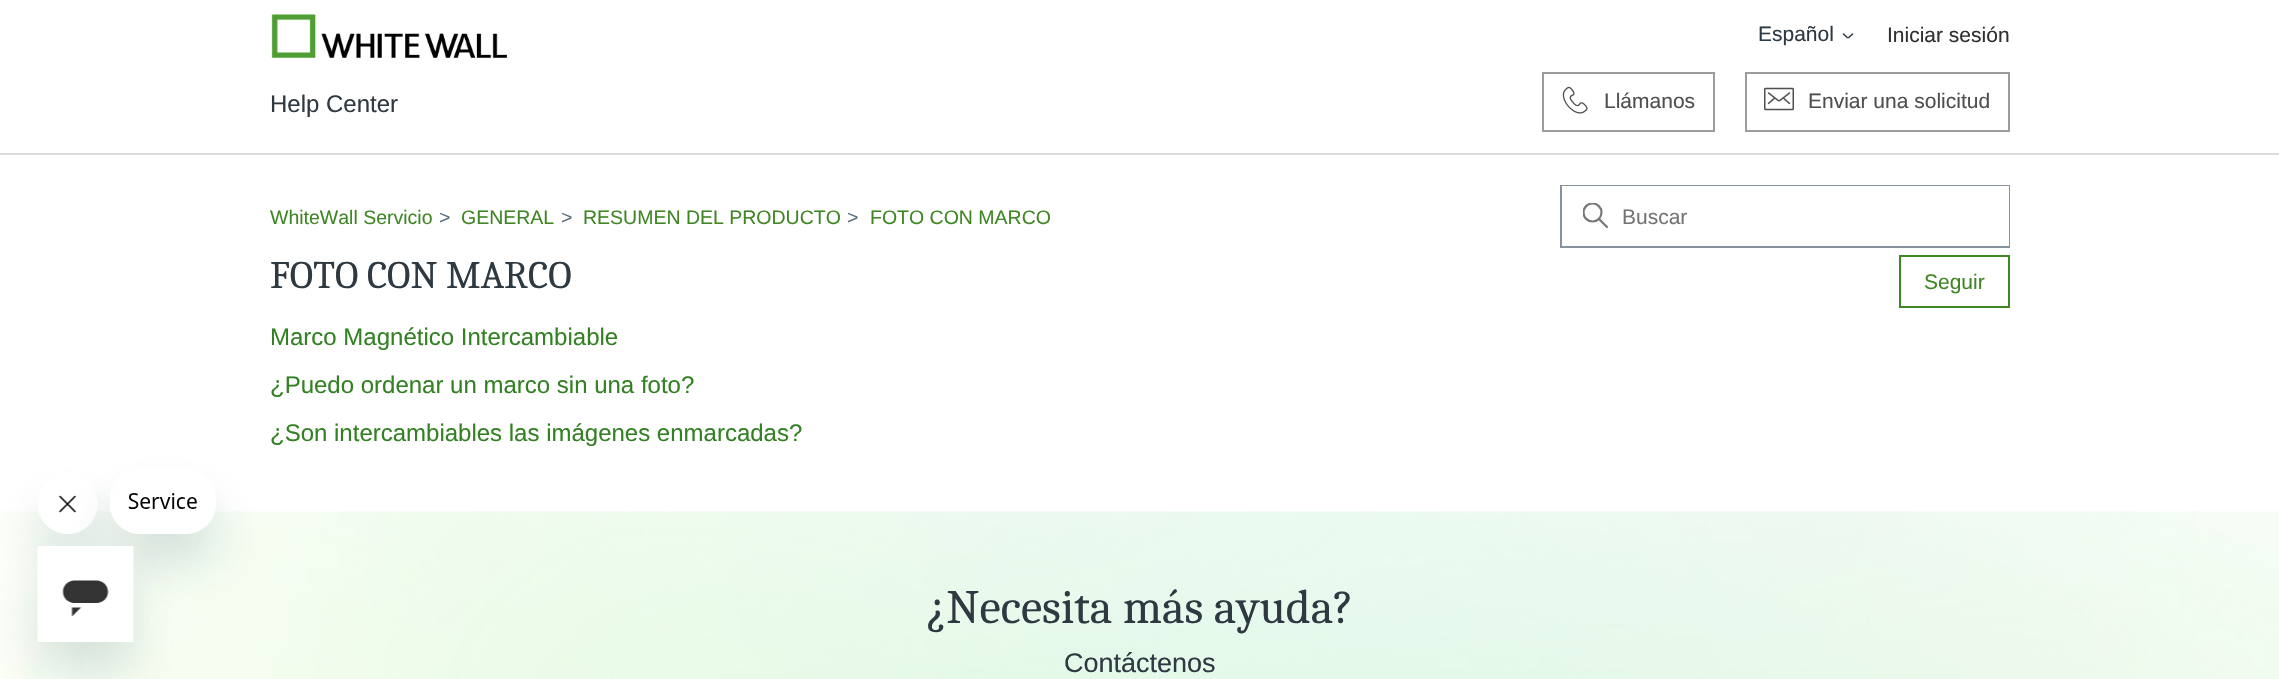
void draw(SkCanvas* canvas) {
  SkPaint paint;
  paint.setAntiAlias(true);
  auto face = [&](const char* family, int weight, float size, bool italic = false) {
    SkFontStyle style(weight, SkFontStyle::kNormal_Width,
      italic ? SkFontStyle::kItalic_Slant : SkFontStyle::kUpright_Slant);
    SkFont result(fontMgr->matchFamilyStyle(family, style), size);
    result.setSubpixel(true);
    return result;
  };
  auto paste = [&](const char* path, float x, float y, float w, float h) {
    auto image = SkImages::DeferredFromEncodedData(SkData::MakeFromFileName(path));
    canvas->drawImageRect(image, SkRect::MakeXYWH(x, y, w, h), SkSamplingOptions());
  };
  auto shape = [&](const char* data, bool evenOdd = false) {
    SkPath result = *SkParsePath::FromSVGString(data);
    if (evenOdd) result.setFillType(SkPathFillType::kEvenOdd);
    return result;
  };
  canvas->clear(0xffffffff);
  paste("img/1.png", 271, 14, 236, 44);
  paint.setStroke(true);
  paint.setStrokeWidth(1.5f);
  paint.setStrokeCap(SkPaint::kRound_Cap);
  paint.setColor(0xff2f3941);
  canvas->drawPath(shape("M1843.5 34C1849 39 1847 39 1852.5 34"), paint);
  paint.setStrokeWidth(2);
  paint.setStrokeCap(SkPaint::kButt_Cap);
  paint.setColor(0xff9b9b9b);
  canvas->drawRect(SkRect::MakeXYWH(1543, 73, 171, 58), paint);
  paste("img/2.png", 1562, 86, 26, 28);
  canvas->drawRect(SkRect::MakeXYWH(1746, 73, 263, 58), paint);
  paste("img/3.png", 1764, 87, 30, 24);
  paste("img/7.png", 0, 511, 2279, 168);
  canvas->save();
  canvas->clipPath(shape("M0 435H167V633H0ZM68 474C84.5 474 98 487.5 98 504C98 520.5 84.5 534 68 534C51.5 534 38 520.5 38 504C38 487.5 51.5 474 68 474Z", true), true);
  paint.setStroke(false);
  paint.setColor(0x2617494d);
  paint.setMaskFilter(SkMaskFilter::MakeBlur(kNormal_SkBlurStyle, 22.5f));
  canvas->drawRoundRect(SkRect::MakeXYWH(38, 504, 60, 60), 30, 30, paint);
  paint.setMaskFilter(nullptr);
  canvas->restore();
  paste("img/5.png", 39, 495, 57, 39);
  canvas->save();
  canvas->clipPath(shape("M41 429H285V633H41ZM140 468H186C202.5 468 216 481.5 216 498V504C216 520.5 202.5 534 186 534H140C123.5 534 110 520.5 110 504V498C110 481.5 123.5 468 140 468Z", true), true);
  paint.setMaskFilter(SkMaskFilter::MakeBlur(kNormal_SkBlurStyle, 22.5f));
  canvas->drawRoundRect(SkRect::MakeXYWH(110, 498, 106, 66), 30, 30, paint);
  paint.setMaskFilter(nullptr);
  canvas->restore();
  paste("img/4.png", 110, 493, 105, 41);
  paint.setMaskFilter(SkMaskFilter::MakeBlur(kNormal_SkBlurStyle, 22.5f));
  canvas->drawRect(SkRect::MakeXYWH(38, 576, 96, 96), paint);
  paint.setMaskFilter(nullptr);
  paste("img/6.png", 37, 546, 97, 96);
  paint.setColor(0xffdddddd);
  canvas->drawRect(SkRect::MakeXYWH(0, 153, 2279, 2), paint);
  paint.setStroke(true);
  paint.setColor(0xff87929d);
  canvas->drawRect(SkRect::MakeXYWH(1561, 186, 448, 61), paint);
  paint.setStroke(false);
  paint.setColor(0xffffffff);
  canvas->drawRect(SkRect::MakeXYWH(1562, 186, 447, 60), paint);
  canvas->save();
  canvas->clipRect(SkRect::MakeXYWH(1583, 203, 27, 27));
  paint.setStroke(true);
  paint.setStrokeWidth(2.2f);
  paint.setColor(0xff777777);
  canvas->drawCircle(1592.5f, 212.5f, 9, paint);
  canvas->restore();
  paint.setStrokeCap(SkPaint::kRound_Cap);
  canvas->drawPath(shape("M1607 227L1599.5 219.5"), paint);
  paint.setStrokeWidth(2);
  paint.setStrokeCap(SkPaint::kButt_Cap);
  paint.setColor(0xff3f8624);
  canvas->drawRect(SkRect::MakeXYWH(1900, 256, 109, 51), paint);
  auto f0 = face("Liberation Sans", 400, 21);
  paint.setStroke(false);
  paint.setColor(0xff2f3941);
  canvas->drawString("Español", 1758, 41, f0, paint);
  paint.setColor(0xff303030);
  canvas->drawString("Iniciar sesión", 1887, 42, f0, paint);
  auto f1 = face("Liberation Sans", 400, 24);
  paint.setColor(0xff2f3941);
  canvas->drawString("Help Center", 270, 112, f1, paint);
  paint.setColor(0xff4f4f4f);
  canvas->drawString("Llámanos", 1604, 108, f0, paint);
  canvas->drawString("Enviar una solicitud", 1808, 108, f0, paint);
  auto f2 = face("Liberation Sans", 400, 19.5f);
  paint.setColor(0xff3f8624);
  canvas->drawString("WhiteWall Servicio", 270, 224, f2, paint);
  paint.setColor(0xff5a6d7c);
  canvas->drawString(">", 439, 224, f2, paint);
  paint.setColor(0xff3f8624);
  canvas->drawString("GENERAL", 461, 224, f2, paint);
  paint.setColor(0xff5a6d7c);
  canvas->drawString(">", 561, 224, f2, paint);
  paint.setColor(0xff3f8624);
  canvas->drawString("RESUMEN DEL PRODUCTO", 583, 224, f2, paint);
  paint.setColor(0xff5a6d7c);
  canvas->drawString(">", 847, 224, f2, paint);
  paint.setColor(0xff3f8624);
  canvas->drawString("FOTO CON MARCO", 870, 224, f2, paint);
  paint.setColor(0xff757575);
  canvas->drawString("Buscar", 1622, 224, f0, paint);
  auto f3 = face("Caladea", 400, 39);
  paint.setColor(0xff2f3941);
  canvas->drawString("FOTO CON MARCO", 270, 288, f3, paint);
  paint.setColor(0xff3f8624);
  canvas->drawString("Seguir", 1924, 289, f0, paint);
  paint.setColor(0xff338123);
  {
    const struct { const char* s; float x, y; } items[] = {
      {"Marco Magnético Intercambiable", 270, 345},
      {"¿Puedo ordenar un marco sin una foto?", 270, 393},
      {"¿Son intercambiables las imágenes enmarcadas?", 270, 441},
    };
    for (auto [s, x, y] : items) {
      canvas->drawString(s, x, y, f1, paint);
    }
  }
  auto f4 = face("Caladea", 400, 48);
  paint.setColor(0xff2f3941);
  canvas->drawString("¿Necesita más ayuda?", 926, 623, f4, paint);
  auto f5 = face("Liberation Sans", 400, 27);
  canvas->drawString("Contáctenos", 1064, 672, f5, paint);
}
